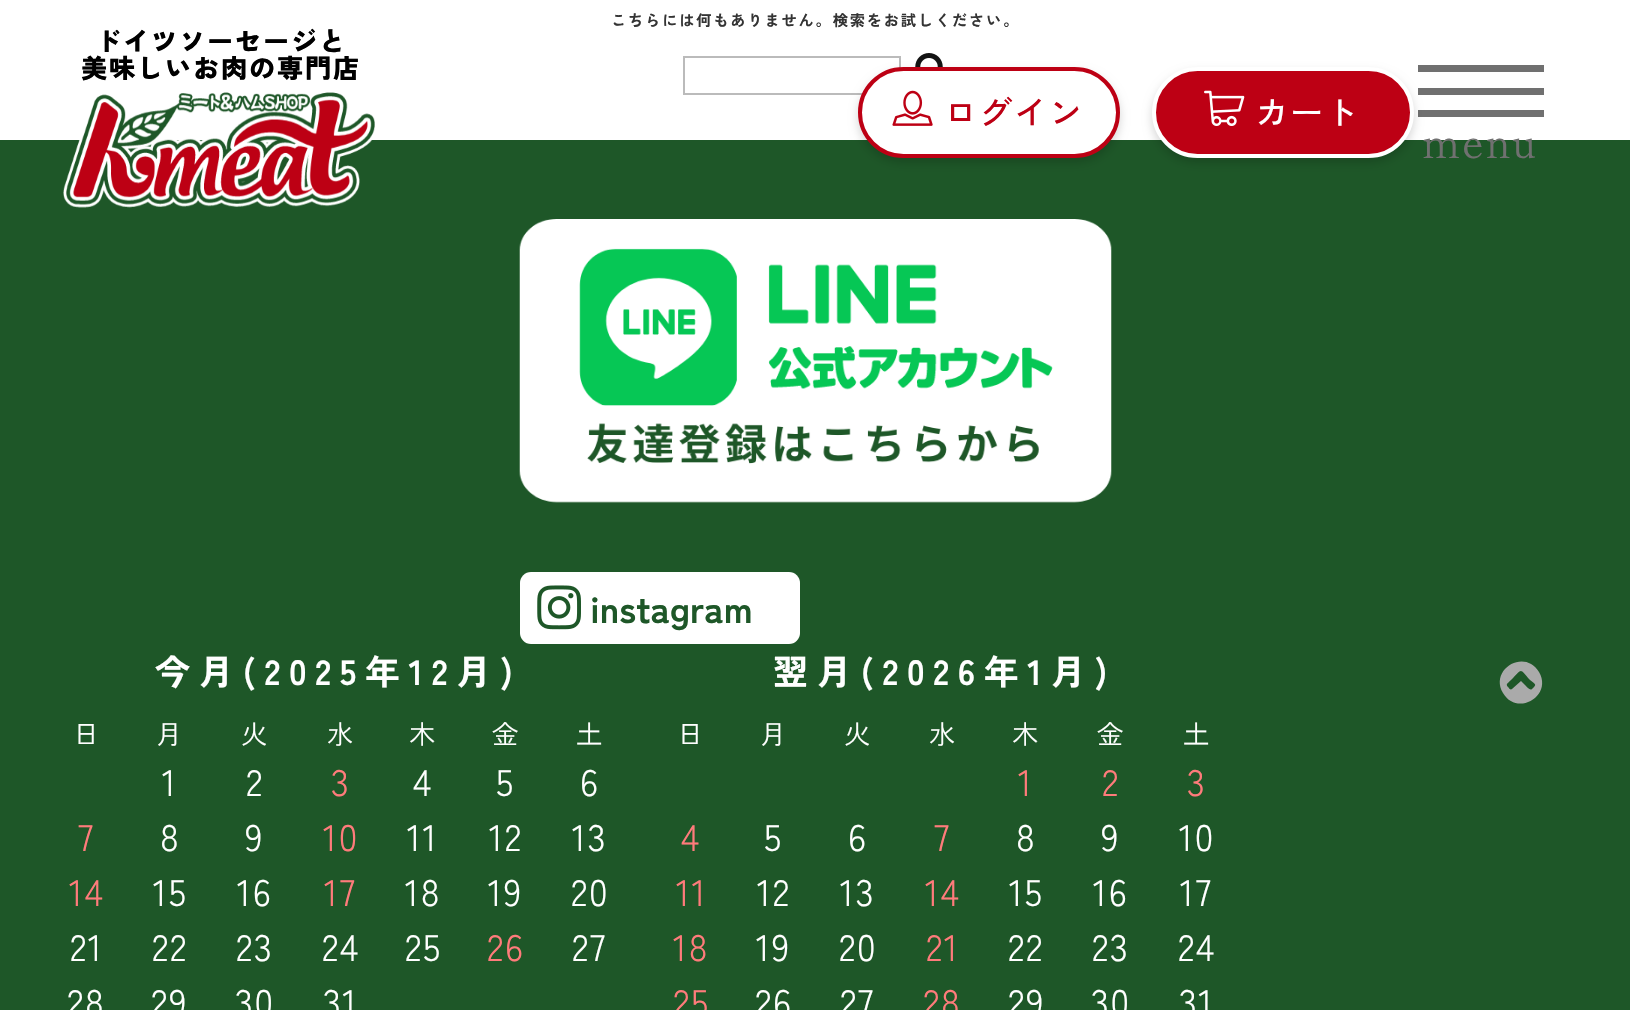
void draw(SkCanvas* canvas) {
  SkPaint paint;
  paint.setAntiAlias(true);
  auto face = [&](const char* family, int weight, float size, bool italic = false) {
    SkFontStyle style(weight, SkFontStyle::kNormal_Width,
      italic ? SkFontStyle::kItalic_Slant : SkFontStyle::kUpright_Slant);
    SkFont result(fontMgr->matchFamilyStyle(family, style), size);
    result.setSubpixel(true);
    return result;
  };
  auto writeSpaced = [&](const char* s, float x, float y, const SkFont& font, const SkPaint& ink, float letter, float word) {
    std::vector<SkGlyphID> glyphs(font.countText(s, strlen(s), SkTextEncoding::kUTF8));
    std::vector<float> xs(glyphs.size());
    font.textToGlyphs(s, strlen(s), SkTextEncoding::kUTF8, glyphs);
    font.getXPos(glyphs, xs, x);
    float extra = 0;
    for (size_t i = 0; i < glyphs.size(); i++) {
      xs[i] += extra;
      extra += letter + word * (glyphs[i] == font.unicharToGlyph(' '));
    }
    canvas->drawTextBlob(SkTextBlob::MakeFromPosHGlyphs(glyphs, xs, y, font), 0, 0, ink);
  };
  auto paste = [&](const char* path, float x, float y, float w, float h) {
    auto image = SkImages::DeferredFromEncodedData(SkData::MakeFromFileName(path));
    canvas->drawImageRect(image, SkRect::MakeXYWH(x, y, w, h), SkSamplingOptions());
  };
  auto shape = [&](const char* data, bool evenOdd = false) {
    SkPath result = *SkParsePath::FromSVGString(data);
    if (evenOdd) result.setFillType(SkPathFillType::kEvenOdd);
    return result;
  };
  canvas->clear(0xffffffff);
  paint.setStroke(true);
  paint.setStrokeWidth(2);
  paint.setColor(0xffbbbbbb);
  canvas->drawRect(SkRect::MakeXYWH(684, 57, 216, 37), paint);
  paste("img/1.png", 915, 53, 28, 14);
  paint.setStroke(false);
  paint.setColor(0xff1e5728);
  canvas->drawRect(SkRect::MakeXYWH(0, 140, 1630, 870), paint);
  paste("img/2.png", 63, 92, 312, 116);
  paint.setColor(0x29000000);
  paint.setMaskFilter(SkMaskFilter::MakeBlur(kNormal_SkBlurStyle, 5));
  canvas->drawRoundRect(SkRect::MakeXYWH(858, 72, 262, 91), 45.5f, 45.5f, paint);
  paint.setMaskFilter(nullptr);
  paint.setColor(0xffffffff);
  canvas->drawRoundRect(SkRect::MakeXYWH(860, 69, 258, 87), 43.5f, 43.5f, paint);
  paint.setStroke(true);
  paint.setStrokeWidth(4);
  paint.setColor(0xffbd0014);
  canvas->drawRoundRect(SkRect::MakeXYWH(860, 69, 258, 87), 43.5f, 43.5f, paint);
  paste("img/3.png", 892, 90, 41, 36);
  paint.setStroke(false);
  {
    const struct { float x, y, w, h; SkColor color; } items[] = {
      {1418, 88, 126, 7, 0xff707070},
      {1418, 65, 126, 7, 0xff707070},
      {1418, 110, 126, 7, 0xff707070},
    };
    for (auto [x, y, w, h, color] : items) {
      paint.setColor(color);
      canvas->drawRect(SkRect::MakeXYWH(x, y, w, h), paint);
    }
  }
  paint.setColor(0x29000000);
  paint.setMaskFilter(SkMaskFilter::MakeBlur(kNormal_SkBlurStyle, 5));
  canvas->drawRoundRect(SkRect::MakeXYWH(1152, 72, 262, 91), 45.5f, 45.5f, paint);
  paint.setMaskFilter(nullptr);
  paint.setColor(0xffbd0014);
  canvas->drawRoundRect(SkRect::MakeXYWH(1154, 69, 258, 87), 43.5f, 43.5f, paint);
  paint.setStroke(true);
  paint.setColor(0xffffffff);
  canvas->drawRoundRect(SkRect::MakeXYWH(1154, 69, 258, 87), 43.5f, 43.5f, paint);
  paste("img/4.png", 1204, 90, 41, 36);
  paste("img/5.png", 519, 219, 593, 284);
  paint.setStroke(false);
  canvas->drawRoundRect(SkRect::MakeXYWH(520, 572, 280, 72), 11, 11, paint);
  paste("img/6.png", 537, 585, 44, 45);
  paint.setColor(0xffaaaaaa);
  canvas->drawPath(shape("M1532 689C1537 684 1536 685 1530 680C1519 668 1523 668 1511 680C1507 684 1505 684 1509 688C1509 689 1511 690 1512 689L1521 681L1526 686C1527 687 1530 691 1532 689ZM1539 672C1553 696 1517 717 1503 693C1489 669 1525 648 1539 672Z"), paint);
  auto f0 = face("Zen Kaku Gothic New", 700, 15.3f);
  paint.setColor(0xff343434);
  writeSpaced("こちらには何もありません。検索をお試しください。", 611, 26, f0, paint, 1.75f, 0);
  auto f1 = face("Zen Kaku Gothic New", 900, 26.25f);
  paint.setColor(0xff000000);
  writeSpaced("ドイツソーセージと", 95, 51, f1, paint, 1.75f, 0);
  writeSpaced("美味しいお肉の専門店", 81, 78, f1, paint, 1.75f, 0);
  auto f2 = face("Zen Kaku Gothic New", 500, 33.25f);
  paint.setColor(0xffbd0014);
  writeSpaced("ログイン", 944, 125, f2, paint, 1.75f, 0);
  paint.setColor(0xffffffff);
  writeSpaced("カート", 1255, 125, f2, paint, 1.75f, 0);
  auto f3 = face("Shippori Mincho", 400, 40);
  paint.setColor(0xff707070);
  writeSpaced("menu", 1422, 158, f3, paint, 1.75f, 0);
  auto f4 = face("Zen Kaku Gothic New", 700, 36.75f);
  paint.setColor(0xff1e5728);
  canvas->drawString("instagram", 590, 623, f4, paint);
  auto f5 = face("Zen Kaku Gothic New", 700, 35);
  paint.setColor(0xffffffff);
  writeSpaced("今月(2025年12月)", 155, 685, f5, paint, 8.75f, 0);
  auto f6 = face("Zen Kaku Gothic New", 400, 26.25f);
  {
    const struct { const char* s; float x, y; } items[] = {
      {"日", 73, 744},
      {"月", 156, 744},
      {"火", 241, 744},
      {"水", 327, 744},
      {"木", 409, 744},
      {"金", 492, 744},
      {"土", 576, 744},
    };
    for (auto [s, x, y] : items) {
      writeSpaced(s, x, y, f6, paint, 1.75f, 0);
    }
  }
  auto f7 = face("Zen Kaku Gothic New", 400, 36.75f);
  writeSpaced("1", 162, 796, f7, paint, 1.75f, 0);
  writeSpaced("2", 246, 796, f7, paint, 1.75f, 0);
  paint.setColor(0xffff7b7b);
  writeSpaced("3", 331, 796, f7, paint, 1.75f, 0);
  paint.setColor(0xffffffff);
  {
    const struct { const char* s; float x, y; } items[] = {
      {"4", 413, 796},
      {"5", 496, 796},
      {"6", 580, 796},
    };
    for (auto [s, x, y] : items) {
      writeSpaced(s, x, y, f7, paint, 1.75f, 0);
    }
  }
  paint.setColor(0xffff7b7b);
  writeSpaced("7", 78, 851, f7, paint, 1.75f, 0);
  paint.setColor(0xffffffff);
  writeSpaced("8", 160, 851, f7, paint, 1.75f, 0);
  writeSpaced("9", 245, 851, f7, paint, 1.75f, 0);
  paint.setColor(0xffff7b7b);
  writeSpaced("10", 323, 851, f7, paint, 1.75f, 0);
  paint.setColor(0xffffffff);
  {
    const struct { const char* s; float x, y; } items[] = {
      {"11", 407, 851},
      {"12", 489, 851},
      {"13", 572, 851},
    };
    for (auto [s, x, y] : items) {
      writeSpaced(s, x, y, f7, paint, 1.75f, 0);
    }
  }
  paint.setColor(0xffff7b7b);
  writeSpaced("14", 69, 906, f7, paint, 1.75f, 0);
  paint.setColor(0xffffffff);
  writeSpaced("15", 153, 906, f7, paint, 1.75f, 0);
  writeSpaced("16", 237, 906, f7, paint, 1.75f, 0);
  paint.setColor(0xffff7b7b);
  writeSpaced("17", 324, 906, f7, paint, 1.75f, 0);
  paint.setColor(0xffffffff);
  {
    const struct { const char* s; float x, y; } items[] = {
      {"18", 405, 906},
      {"19", 488, 906},
      {"20", 571, 906},
      {"21", 70, 961},
      {"22", 152, 961},
      {"23", 236, 961},
      {"24", 322, 961},
      {"25", 405, 961},
    };
    for (auto [s, x, y] : items) {
      writeSpaced(s, x, y, f7, paint, 1.75f, 0);
    }
  }
  paint.setColor(0xffff7b7b);
  writeSpaced("26", 487, 961, f7, paint, 1.75f, 0);
  paint.setColor(0xffffffff);
  {
    const struct { const char* s; float x, y; } items[] = {
      {"27", 572, 961},
      {"28", 67, 1016},
      {"29", 151, 1016},
      {"30", 235, 1016},
      {"31", 323, 1016},
    };
    for (auto [s, x, y] : items) {
      writeSpaced(s, x, y, f7, paint, 1.75f, 0);
    }
  }
  writeSpaced("翌月(2026年1月)", 773, 685, f5, paint, 8.75f, 0);
  {
    const struct { const char* s; float x, y; } items[] = {
      {"日", 677, 744},
      {"月", 760, 744},
      {"火", 844, 744},
      {"水", 929, 744},
      {"木", 1012, 744},
      {"金", 1097, 744},
      {"土", 1183, 744},
    };
    for (auto [s, x, y] : items) {
      writeSpaced(s, x, y, f6, paint, 1.75f, 0);
    }
  }
  paint.setColor(0xffff7b7b);
  {
    const struct { const char* s; float x, y; } items[] = {
      {"1", 1018, 796},
      {"2", 1102, 796},
      {"3", 1187, 796},
      {"4", 681, 851},
    };
    for (auto [s, x, y] : items) {
      writeSpaced(s, x, y, f7, paint, 1.75f, 0);
    }
  }
  paint.setColor(0xffffffff);
  writeSpaced("5", 764, 851, f7, paint, 1.75f, 0);
  writeSpaced("6", 848, 851, f7, paint, 1.75f, 0);
  paint.setColor(0xffff7b7b);
  writeSpaced("7", 934, 851, f7, paint, 1.75f, 0);
  paint.setColor(0xffffffff);
  {
    const struct { const char* s; float x, y; } items[] = {
      {"8", 1016, 851},
      {"9", 1101, 851},
      {"10", 1179, 851},
    };
    for (auto [s, x, y] : items) {
      writeSpaced(s, x, y, f7, paint, 1.75f, 0);
    }
  }
  paint.setColor(0xffff7b7b);
  writeSpaced("11", 676, 906, f7, paint, 1.75f, 0);
  paint.setColor(0xffffffff);
  writeSpaced("12", 757, 906, f7, paint, 1.75f, 0);
  writeSpaced("13", 840, 906, f7, paint, 1.75f, 0);
  paint.setColor(0xffff7b7b);
  writeSpaced("14", 925, 906, f7, paint, 1.75f, 0);
  paint.setColor(0xffffffff);
  {
    const struct { const char* s; float x, y; } items[] = {
      {"15", 1009, 906},
      {"16", 1093, 906},
      {"17", 1180, 906},
    };
    for (auto [s, x, y] : items) {
      writeSpaced(s, x, y, f7, paint, 1.75f, 0);
    }
  }
  paint.setColor(0xffff7b7b);
  writeSpaced("18", 673, 961, f7, paint, 1.75f, 0);
  paint.setColor(0xffffffff);
  writeSpaced("19", 756, 961, f7, paint, 1.75f, 0);
  writeSpaced("20", 839, 961, f7, paint, 1.75f, 0);
  paint.setColor(0xffff7b7b);
  writeSpaced("21", 926, 961, f7, paint, 1.75f, 0);
  paint.setColor(0xffffffff);
  {
    const struct { const char* s; float x, y; } items[] = {
      {"22", 1008, 961},
      {"23", 1092, 961},
      {"24", 1178, 961},
    };
    for (auto [s, x, y] : items) {
      writeSpaced(s, x, y, f7, paint, 1.75f, 0);
    }
  }
  paint.setColor(0xffff7b7b);
  writeSpaced("25", 673, 1016, f7, paint, 1.75f, 0);
  paint.setColor(0xffffffff);
  writeSpaced("26", 755, 1016, f7, paint, 1.75f, 0);
  writeSpaced("27", 840, 1016, f7, paint, 1.75f, 0);
  paint.setColor(0xffff7b7b);
  writeSpaced("28", 923, 1016, f7, paint, 1.75f, 0);
  paint.setColor(0xffffffff);
  {
    const struct { const char* s; float x, y; } items[] = {
      {"29", 1008, 1016},
      {"30", 1091, 1016},
      {"31", 1179, 1016},
    };
    for (auto [s, x, y] : items) {
      writeSpaced(s, x, y, f7, paint, 1.75f, 0);
    }
  }
}
